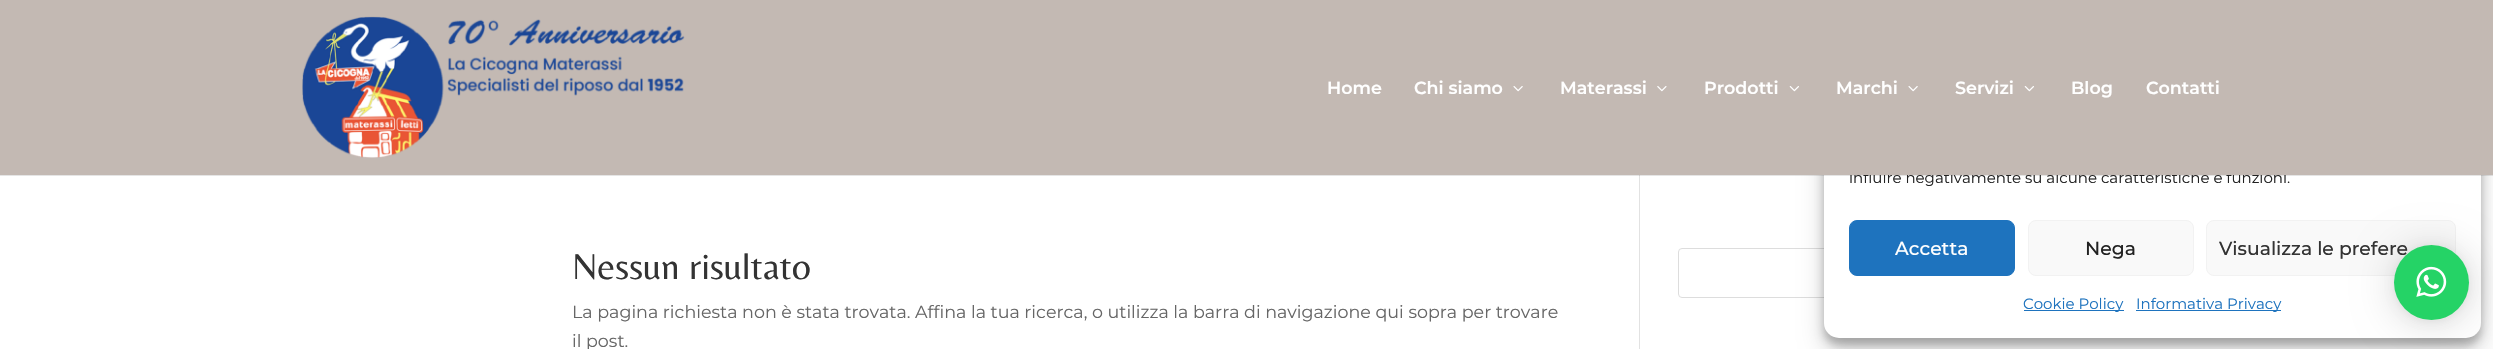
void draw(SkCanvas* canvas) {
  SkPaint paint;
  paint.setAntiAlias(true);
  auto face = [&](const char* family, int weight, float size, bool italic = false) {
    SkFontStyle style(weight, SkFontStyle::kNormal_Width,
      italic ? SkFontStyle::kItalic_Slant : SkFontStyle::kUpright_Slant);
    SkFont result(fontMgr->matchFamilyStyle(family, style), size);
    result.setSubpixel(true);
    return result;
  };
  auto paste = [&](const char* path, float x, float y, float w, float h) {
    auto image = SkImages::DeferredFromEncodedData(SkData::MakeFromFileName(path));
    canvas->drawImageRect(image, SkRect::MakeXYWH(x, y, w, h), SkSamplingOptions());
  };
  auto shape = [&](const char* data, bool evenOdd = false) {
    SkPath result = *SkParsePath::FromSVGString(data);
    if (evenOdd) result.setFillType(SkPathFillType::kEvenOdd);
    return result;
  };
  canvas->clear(0xffffffff);
  paint.setColor(0xffe2e2e2);
  canvas->drawRect(SkRect::MakeXYWH(1639, 175, 1, 174), paint);
  paint.setStroke(true);
  paint.setStrokeWidth(1);
  paint.setColor(0xffdddddd);
  canvas->drawRoundRect(SkRect::MakeXYWH(1678.5f, 248.5f, 242, 49), 3.5f, 3.5f, paint);
  paint.setStroke(false);
  paint.setColor(0x3b000000);
  paint.setMaskFilter(SkMaskFilter::MakeBlur(kNormal_SkBlurStyle, 4));
  canvas->drawRoundRect(SkRect::MakeXYWH(1824, 20, 657, 325), 15, 15, paint);
  paint.setMaskFilter(nullptr);
  paint.setColor(0x30000000);
  paint.setMaskFilter(SkMaskFilter::MakeBlur(kNormal_SkBlurStyle, 12.5f));
  canvas->drawRoundRect(SkRect::MakeXYWH(1824, 25, 657, 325), 15, 15, paint);
  paint.setMaskFilter(nullptr);
  paint.setColor(0xffffffff);
  canvas->drawRoundRect(SkRect::MakeXYWH(1824, 13, 657, 325), 15, 15, paint);
  paint.setColor(0x1a000000);
  canvas->drawPath(shape("M0 175V176H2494V1V175Z"), paint);
  paint.setColor(0xff1e73be);
  canvas->drawRoundRect(SkRect::MakeXYWH(1849.5f, 220.5f, 165, 55), 7.5f, 7.5f, paint);
  paint.setStroke(true);
  canvas->drawRoundRect(SkRect::MakeXYWH(1849.5f, 220.5f, 165, 55), 7.5f, 7.5f, paint);
  paint.setStroke(false);
  paint.setColor(0xfff9f9f9);
  canvas->drawRoundRect(SkRect::MakeXYWH(2028.5f, 220.5f, 165, 55), 7.5f, 7.5f, paint);
  paint.setStroke(true);
  paint.setColor(0xfff2f2f2);
  canvas->drawRoundRect(SkRect::MakeXYWH(2028.5f, 220.5f, 165, 55), 7.5f, 7.5f, paint);
  paint.setStroke(false);
  paint.setColor(0xfff9f9f9);
  canvas->drawRoundRect(SkRect::MakeXYWH(2206.5f, 220.5f, 249, 55), 7.5f, 7.5f, paint);
  paint.setStroke(true);
  paint.setColor(0xfff2f2f2);
  canvas->drawRoundRect(SkRect::MakeXYWH(2206.5f, 220.5f, 249, 55), 7.5f, 7.5f, paint);
  paint.setStroke(false);
  paint.setColor(0xff1e73be);
  canvas->drawRect(SkRect::MakeXYWH(2024, 310, 100, 1), paint);
  canvas->drawRect(SkRect::MakeXYWH(2136, 310, 145, 1), paint);
  paint.setColor(0x29000000);
  paint.setMaskFilter(SkMaskFilter::MakeBlur(kNormal_SkBlurStyle, 20));
  canvas->drawRoundRect(SkRect::MakeXYWH(2394, 248, 75, 75), 37.5f, 37.5f, paint);
  paint.setMaskFilter(nullptr);
  paint.setColor(0x0f000000);
  paint.setMaskFilter(SkMaskFilter::MakeBlur(kNormal_SkBlurStyle, 4));
  canvas->drawRoundRect(SkRect::MakeXYWH(2394, 246, 75, 75), 37.5f, 37.5f, paint);
  paint.setMaskFilter(nullptr);
  auto f0 = face("Belleza", 400, 37.5f);
  paint.setColor(0xff333333);
  canvas->drawString("Nessun risultato", 572, 279, f0, paint);
  auto f1 = face("Montserrat", 400, 17.5f);
  paint.setColor(0xff666666);
  canvas->drawString("La pagina richiesta non è stata trovata. Affina la tua ricerca, o utilizza la barra di navigazione qui sopra per trovare", 572, 318, f1, paint);
  canvas->drawString("il post.", 572, 347, f1, paint);
  auto f2 = face("Montserrat", 400, 15);
  paint.setColor(0xff222222);
  canvas->drawString("influire negativamente su alcune caratteristiche e funzioni.", 1849, 183, f2, paint);
  paint.setColor(0xffc3b9b3);
  canvas->drawRect(SkRect::MakeXYWH(0, 0, 2493, 175), paint);
  auto f3 = face("Montserrat", 600, 17.5f);
  paint.setColor(0xffffffff);
  canvas->drawString("Contatti", 2146, 94, f3, paint);
  canvas->drawString("Blog", 2071, 94, f3, paint);
  paste("img/4.png", 2024, 86, 10, 6);
  canvas->drawString("Servizi", 1955, 94, f3, paint);
  paste("img/2.png", 1908, 86, 10, 6);
  canvas->drawString("Marchi", 1836, 94, f3, paint);
  paste("img/4.png", 1789, 86, 10, 6);
  canvas->drawString("Prodotti", 1704, 94, f3, paint);
  paste("img/3.png", 1657, 86, 10, 6);
  canvas->drawString("Materassi", 1560, 94, f3, paint);
  paste("img/2.png", 1513, 86, 10, 6);
  canvas->drawString("Chi siamo", 1414, 94, f3, paint);
  canvas->drawString("Home", 1327, 94, f3, paint);
  paste("img/1.png", 302, 16, 383, 142);
  auto f4 = face("Montserrat", 500, 18.75f);
  canvas->drawString("Accetta", 1895, 255, f4, paint);
  paint.setColor(0xff222222);
  canvas->drawString("Nega", 2085, 255, f4, paint);
  paint.setColor(0xff333333);
  canvas->drawString("Visualizza le prefere", 2219, 255, f4, paint);
  paint.setColor(0xff1e73be);
  canvas->drawString("Cookie Policy", 2023, 309, f2, paint);
  canvas->drawString("Informativa Privacy", 2136, 309, f2, paint);
  paint.setColor(0xff25d366);
  canvas->drawCircle(2431.5f, 282.5f, 37.5f, paint);
  paste("img/5.png", 2416, 266, 31, 31);
}
